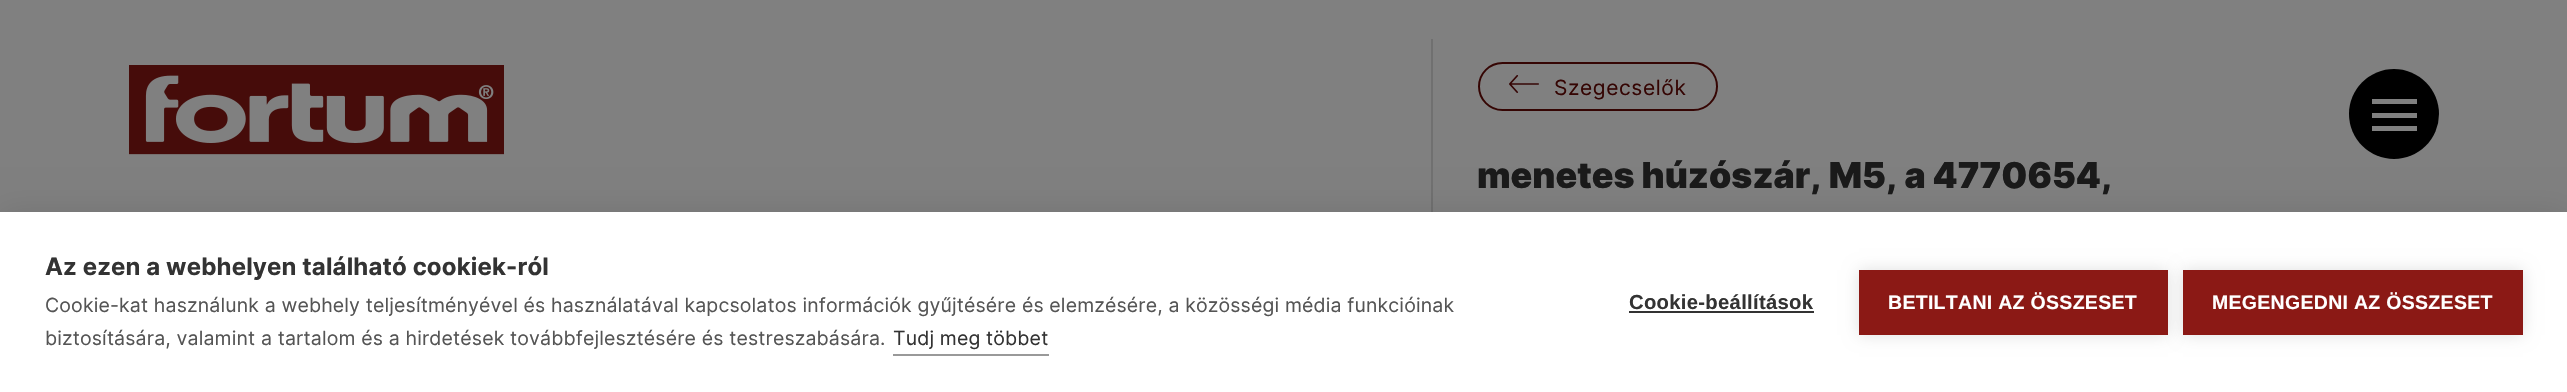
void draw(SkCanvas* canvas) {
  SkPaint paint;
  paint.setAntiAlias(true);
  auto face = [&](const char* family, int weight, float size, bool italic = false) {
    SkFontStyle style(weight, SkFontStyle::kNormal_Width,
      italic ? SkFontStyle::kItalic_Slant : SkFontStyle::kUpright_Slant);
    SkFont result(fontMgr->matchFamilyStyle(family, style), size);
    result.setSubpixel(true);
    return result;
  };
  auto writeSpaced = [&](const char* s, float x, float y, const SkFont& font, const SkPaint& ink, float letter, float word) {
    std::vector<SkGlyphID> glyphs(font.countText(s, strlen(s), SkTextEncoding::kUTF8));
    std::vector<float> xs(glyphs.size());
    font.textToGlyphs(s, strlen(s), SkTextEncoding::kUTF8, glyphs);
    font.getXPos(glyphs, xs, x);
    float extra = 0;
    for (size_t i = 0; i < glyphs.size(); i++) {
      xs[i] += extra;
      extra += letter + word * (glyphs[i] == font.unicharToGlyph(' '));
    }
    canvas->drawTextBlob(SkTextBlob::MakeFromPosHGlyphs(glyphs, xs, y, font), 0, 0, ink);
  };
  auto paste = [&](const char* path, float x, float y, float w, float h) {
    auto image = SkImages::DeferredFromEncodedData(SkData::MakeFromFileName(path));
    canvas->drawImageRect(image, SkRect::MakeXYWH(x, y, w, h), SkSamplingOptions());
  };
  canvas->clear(0xff808080);
  paste("img/1.png", 129, 65, 375, 90);
  paint.setColor(0xff000000);
  canvas->drawCircle(2394, 114, 45, paint);
  {
    const struct { float x, y, w, h; SkColor color; } items[] = {
      {2372, 99, 45, 5, 0xff808080},
      {2372, 113, 45, 5, 0xff808080},
      {2372, 126, 45, 5, 0xff808080},
      {1431, 39, 2, 173, 0xff707070},
    };
    for (auto [x, y, w, h, color] : items) {
      paint.setColor(color);
      canvas->drawRect(SkRect::MakeXYWH(x, y, w, h), paint);
    }
  }
  paint.setStroke(true);
  paint.setStrokeWidth(2);
  paint.setColor(0xff350503);
  canvas->drawRoundRect(SkRect::MakeXYWH(1479, 63, 238, 47), 23.5f, 23.5f, paint);
  paste("img/2.png", 1509, 75, 30, 18);
  paint.setStroke(false);
  paint.setColor(0x1a000000);
  paint.setMaskFilter(SkMaskFilter::MakeBlur(kNormal_SkBlurStyle, 15));
  canvas->drawRect(SkRect::MakeXYWH(0, 212, 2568, 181), paint);
  paint.setMaskFilter(nullptr);
  {
    const struct { float x, y, w, h; SkColor color; } items[] = {
      {0, 212, 2567, 180, 0xffffffff},
      {893, 354, 156, 2, 0xff999999},
      {1629, 311, 185, 2, 0xff333333},
    };
    for (auto [x, y, w, h, color] : items) {
      paint.setColor(color);
      canvas->drawRect(SkRect::MakeXYWH(x, y, w, h), paint);
    }
  }
  paint.setColor(0x1f000000);
  paint.setMaskFilter(SkMaskFilter::MakeBlur(kNormal_SkBlurStyle, 7.5f));
  canvas->drawRect(SkRect::MakeXYWH(1859, 270, 309, 65), paint);
  paint.setMaskFilter(nullptr);
  paint.setColor(0xff8b1915);
  canvas->drawRect(SkRect::MakeXYWH(1859, 270, 309, 65), paint);
  paint.setColor(0x1f000000);
  paint.setMaskFilter(SkMaskFilter::MakeBlur(kNormal_SkBlurStyle, 7.5f));
  canvas->drawRect(SkRect::MakeXYWH(2183, 270, 340, 65), paint);
  paint.setMaskFilter(nullptr);
  paint.setColor(0xff8b1915);
  canvas->drawRect(SkRect::MakeXYWH(2183, 270, 340, 65), paint);
  auto f0 = face("Inter", 400, 21);
  paint.setColor(0xff350503);
  writeSpaced("Szegecselők", 1554, 95, f0, paint, 0.6f, 0);
  auto f1 = face("Inter", 900, 35.75f);
  paint.setColor(0xff1a1a1a);
  canvas->drawString("menetes húzószár, M5, a 4770654,", 1477, 188, f1, paint);
  auto f2 = face("Inter", 700, 24);
  paint.setColor(0xff333333);
  writeSpaced("Az ezen a webhelyen található cookiek-ról", 45, 275, f2, paint, 0.15f, 0);
  auto f3 = face("Inter", 400, 19.5f);
  paint.setColor(0xff555555);
  writeSpaced("Cookie-kat használunk a webhely teljesítményével és használatával kapcsolatos információk gyűjtésére és elemzésére, a közösségi média funkcióinak", 45, 312, f3, paint, 0.15f, 0);
  writeSpaced("biztosítására, valamint a tartalom és a hirdetések továbbfejlesztésére és testreszabására.", 45, 345, f3, paint, 0.15f, 0);
  paint.setColor(0xff333333);
  writeSpaced("Tudj meg többet", 893, 345, f3, paint, 0.15f, 0);
  auto f4 = face("Liberation Sans", 700, 20.25f);
  writeSpaced("Cookie-beállítások", 1629, 309, f4, paint, 0.3f, 0);
  auto f5 = face("Liberation Sans", 700, 19.5f);
  paint.setColor(0xffffffff);
  writeSpaced("BETILTANI AZ ÖSSZESET", 1888, 309, f5, paint, 0.3f, 0);
  writeSpaced("MEGENGEDNI AZ ÖSSZESET", 2212, 309, f5, paint, 0.3f, 0);
}
